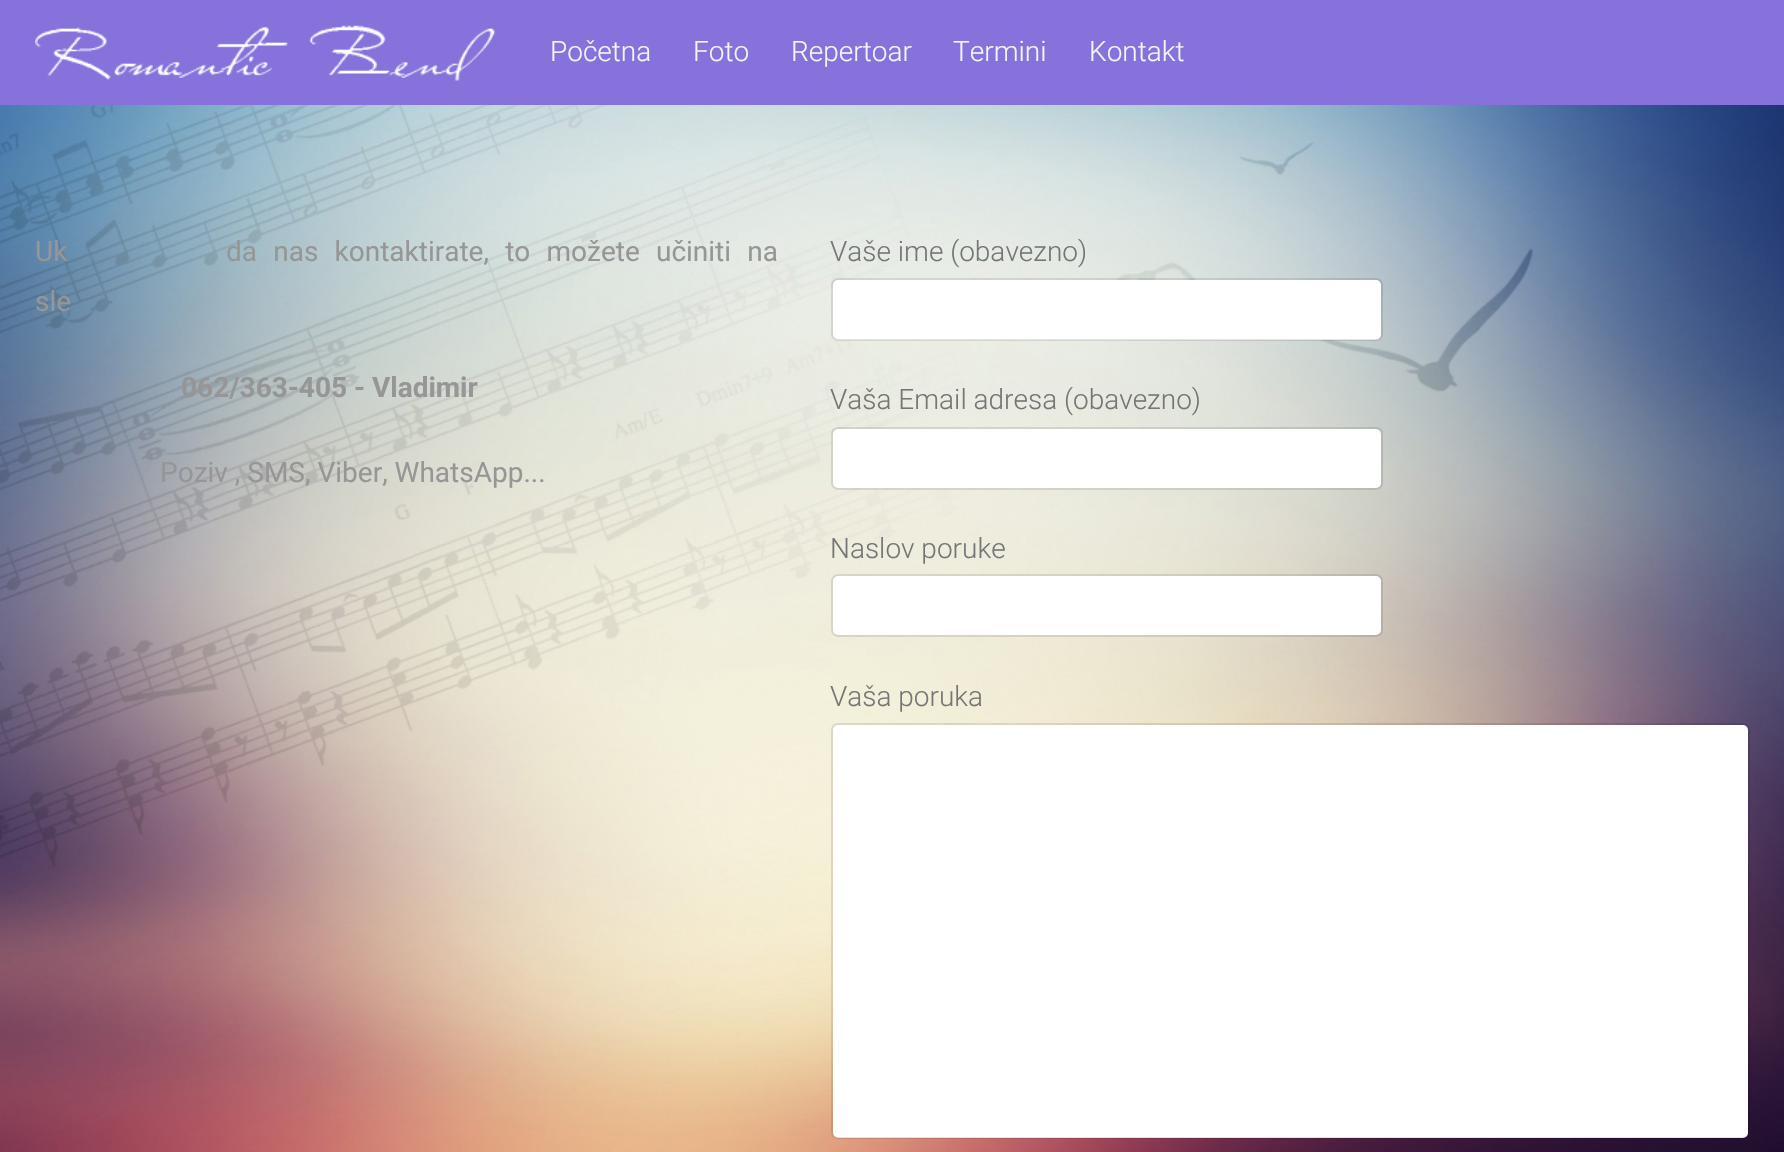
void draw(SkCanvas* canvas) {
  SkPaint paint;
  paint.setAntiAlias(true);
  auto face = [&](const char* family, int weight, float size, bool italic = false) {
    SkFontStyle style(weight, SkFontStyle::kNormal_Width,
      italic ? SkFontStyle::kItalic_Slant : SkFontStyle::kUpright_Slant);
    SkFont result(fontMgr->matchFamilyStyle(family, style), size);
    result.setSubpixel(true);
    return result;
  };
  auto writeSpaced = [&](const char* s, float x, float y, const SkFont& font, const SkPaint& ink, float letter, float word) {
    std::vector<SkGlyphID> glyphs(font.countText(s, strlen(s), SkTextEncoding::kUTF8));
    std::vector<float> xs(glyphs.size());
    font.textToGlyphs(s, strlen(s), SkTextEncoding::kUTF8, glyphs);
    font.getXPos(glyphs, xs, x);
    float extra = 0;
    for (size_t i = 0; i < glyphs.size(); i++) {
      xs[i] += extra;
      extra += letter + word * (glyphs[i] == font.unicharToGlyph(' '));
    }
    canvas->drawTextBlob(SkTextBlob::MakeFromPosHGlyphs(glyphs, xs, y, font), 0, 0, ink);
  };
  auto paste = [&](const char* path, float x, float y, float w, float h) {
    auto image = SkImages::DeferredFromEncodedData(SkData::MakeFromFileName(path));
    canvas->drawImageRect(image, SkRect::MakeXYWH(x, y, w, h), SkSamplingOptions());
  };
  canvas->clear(0xffffffff);
  paste("img/1.png", 0, 105, 1784, 1047);
  paint.setColor(0xff8772db);
  canvas->drawRect(SkRect::MakeXYWH(0, 0, 1784, 105), paint);
  paste("img/2.png", 35, 25, 460, 56);
  paint.setColor(0xffffffff);
  canvas->drawRoundRect(SkRect::MakeXYWH(833, 280, 548, 60), 5, 5, paint);
  paint.setStroke(true);
  paint.setStrokeWidth(2);
  paint.setColor(0x1a000000);
  canvas->drawRoundRect(SkRect::MakeXYWH(832, 279, 550, 61), 6, 6, paint);
  paint.setStroke(false);
  paint.setColor(0xffffffff);
  canvas->drawRoundRect(SkRect::MakeXYWH(833, 429, 548, 59), 5, 5, paint);
  paint.setStroke(true);
  paint.setColor(0x1a000000);
  canvas->drawRoundRect(SkRect::MakeXYWH(832, 428, 550, 61), 6, 6, paint);
  paint.setStroke(false);
  paint.setColor(0xffffffff);
  canvas->drawRoundRect(SkRect::MakeXYWH(833, 576, 548, 59), 5, 5, paint);
  paint.setStroke(true);
  paint.setColor(0x1a000000);
  canvas->drawRoundRect(SkRect::MakeXYWH(832, 575, 550, 61), 6, 6, paint);
  paint.setStroke(false);
  paint.setColor(0xffffffff);
  canvas->drawRoundRect(SkRect::MakeXYWH(833, 725, 915, 413), 5, 5, paint);
  paint.setStroke(true);
  paint.setColor(0x1a000000);
  canvas->drawRoundRect(SkRect::MakeXYWH(832, 724, 917, 414), 6, 6, paint);
  auto f0 = face("Roboto", 300, 28);
  paint.setStroke(false);
  paint.setColor(0xfff4f4f4);
  {
    const struct { const char* s; float x, y; } items[] = {
      {"Početna", 550, 61},
      {"Foto", 693, 61},
      {"Repertoar", 791, 61},
      {"Termini", 953, 61},
      {"Kontakt", 1089, 61},
    };
    for (auto [s, x, y] : items) {
      canvas->drawString(s, x, y, f0, paint);
    }
  }
  auto f1 = face("Roboto", 400, 28);
  paint.setColor(0xff969696);
  writeSpaced("Uk", 35, 261, f1, paint, 0, 9.25f);
  writeSpaced("da nas kontaktirate, to možete učiniti na", 226, 261, f1, paint, 0, 9.25f);
  canvas->drawString("sle", 35, 311, f1, paint);
  auto f2 = face("Roboto", 700, 28);
  canvas->drawString("062/363-405 - Vladimir", 181, 397, f2, paint);
  canvas->drawString("Poziv , SMS, Viber, WhatsApp...", 160, 482, f1, paint);
  paint.setColor(0xff757575);
  {
    const struct { const char* s; float x, y; } items[] = {
      {"Vaše ime (obavezno)", 830, 261},
      {"Vaša Email adresa (obavezno)", 830, 409},
      {"Naslov poruke", 830, 558},
      {"Vaša poruka", 830, 706},
    };
    for (auto [s, x, y] : items) {
      canvas->drawString(s, x, y, f0, paint);
    }
  }
}
